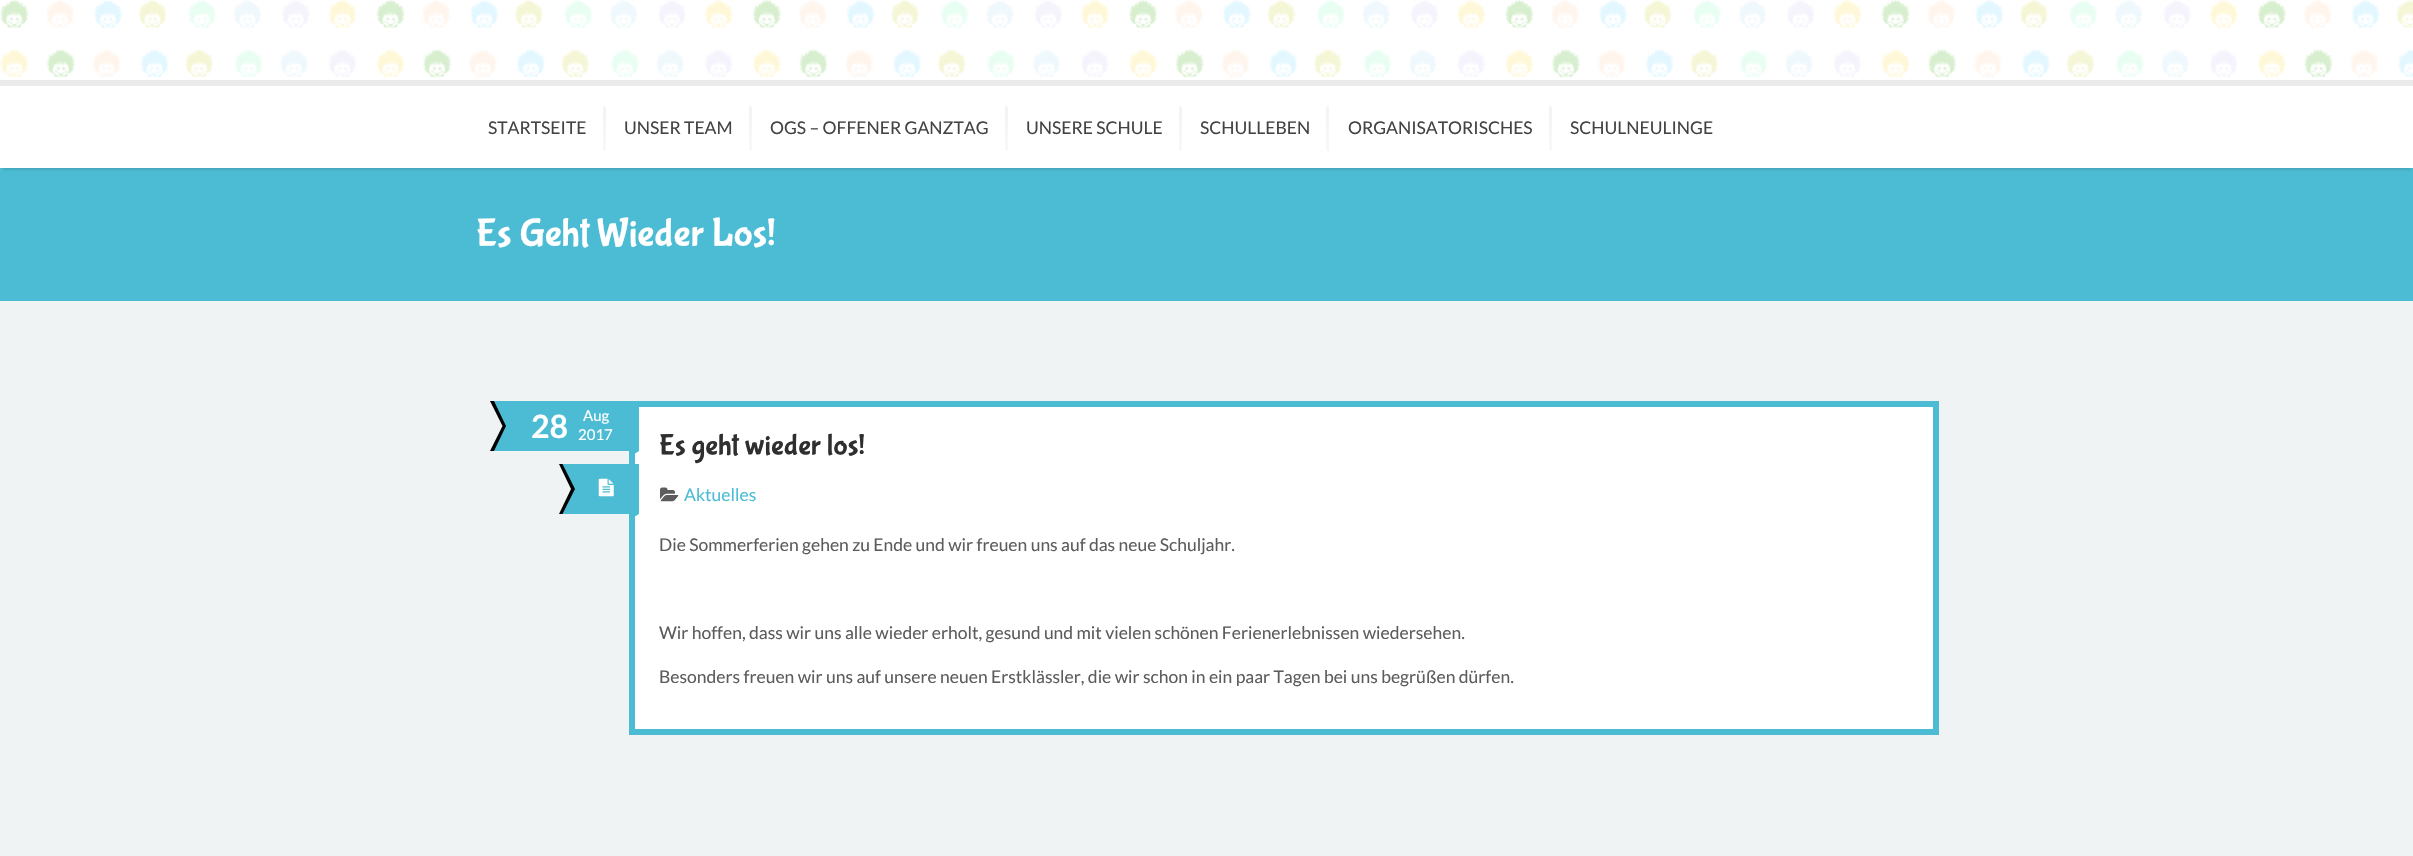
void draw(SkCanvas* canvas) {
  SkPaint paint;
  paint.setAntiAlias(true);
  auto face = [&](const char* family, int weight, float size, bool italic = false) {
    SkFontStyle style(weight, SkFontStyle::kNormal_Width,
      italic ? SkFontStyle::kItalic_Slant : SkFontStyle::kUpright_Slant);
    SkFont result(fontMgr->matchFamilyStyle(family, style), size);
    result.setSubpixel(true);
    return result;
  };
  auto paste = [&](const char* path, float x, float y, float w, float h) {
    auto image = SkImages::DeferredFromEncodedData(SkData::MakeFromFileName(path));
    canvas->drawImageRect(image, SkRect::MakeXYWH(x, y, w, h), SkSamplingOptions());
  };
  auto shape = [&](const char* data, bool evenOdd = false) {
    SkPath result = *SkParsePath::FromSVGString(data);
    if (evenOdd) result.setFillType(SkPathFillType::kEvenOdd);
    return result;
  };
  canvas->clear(0xfff0f3f3);
  paint.setColor(0xffffffff);
  canvas->drawRect(SkRect::MakeXYWH(0, 0, 2413, 80), paint);
  paste("img/1.png", 0, 0, 2413, 78);
  paint.setColor(0xff4cbcd4);
  canvas->drawRect(SkRect::MakeXYWH(0, 168, 2413, 133), paint);
  paint.setColor(0x1a000000);
  paint.setMaskFilter(SkMaskFilter::MakeBlur(kNormal_SkBlurStyle, 1));
  canvas->drawRect(SkRect::MakeXYWH(3, 88, 2408, 82), paint);
  paint.setMaskFilter(nullptr);
  paint.setColor(0xffffffff);
  canvas->drawRect(SkRect::MakeXYWH(0, 86, 2413, 82), paint);
  paint.setColor(0xffebebeb);
  canvas->drawRect(SkRect::MakeXYWH(0, 80, 2413, 6), paint);
  {
    const SkColor colors[] = {0xffffffff, 0xfff3f3f3, 0xffffffff};
    const float stops[] = {0, 0.95f, 1};
    const SkPoint ends[] = {{604, 199}, {604, 104}};
    paint.setShader(SkGradientShader::MakeLinear(ends, colors, stops, 3, SkTileMode::kClamp));
    paint.setAlpha(255);
  }
  canvas->drawRect(SkRect::MakeXYWH(603, 104, 3, 47), paint);
  {
    const SkColor colors[] = {0xffffffff, 0xfff3f3f3, 0xffffffff};
    const float stops[] = {0, 0.95f, 1};
    const SkPoint ends[] = {{750, 199}, {750, 104}};
    paint.setShader(SkGradientShader::MakeLinear(ends, colors, stops, 3, SkTileMode::kClamp));
    paint.setAlpha(255);
  }
  canvas->drawRect(SkRect::MakeXYWH(749, 104, 3, 47), paint);
  {
    const SkColor colors[] = {0xffffffff, 0xfff3f3f3, 0xffffffff};
    const float stops[] = {0, 0.95f, 1};
    const SkPoint ends[] = {{1006, 199}, {1006, 104}};
    paint.setShader(SkGradientShader::MakeLinear(ends, colors, stops, 3, SkTileMode::kClamp));
    paint.setAlpha(255);
  }
  canvas->drawRect(SkRect::MakeXYWH(1005, 104, 3, 47), paint);
  {
    const SkColor colors[] = {0xffffffff, 0xfff3f3f3, 0xffffffff};
    const float stops[] = {0, 0.95f, 1};
    const SkPoint ends[] = {{1180, 199}, {1180, 104}};
    paint.setShader(SkGradientShader::MakeLinear(ends, colors, stops, 3, SkTileMode::kClamp));
    paint.setAlpha(255);
  }
  canvas->drawRect(SkRect::MakeXYWH(1179, 104, 3, 47), paint);
  {
    const SkColor colors[] = {0xffffffff, 0xfff3f3f3, 0xffffffff};
    const float stops[] = {0, 0.95f, 1};
    const SkPoint ends[] = {{1328, 199}, {1328, 104}};
    paint.setShader(SkGradientShader::MakeLinear(ends, colors, stops, 3, SkTileMode::kClamp));
    paint.setAlpha(255);
  }
  canvas->drawRect(SkRect::MakeXYWH(1326, 104, 3, 47), paint);
  {
    const SkColor colors[] = {0xffffffff, 0xfff3f3f3, 0xffffffff};
    const float stops[] = {0, 0.95f, 1};
    const SkPoint ends[] = {{1550, 199}, {1550, 104}};
    paint.setShader(SkGradientShader::MakeLinear(ends, colors, stops, 3, SkTileMode::kClamp));
    paint.setAlpha(255);
  }
  canvas->drawRect(SkRect::MakeXYWH(1549, 104, 3, 47), paint);
  paint.setShader(nullptr);
  paint.setColor(0xffffffff);
  canvas->drawRect(SkRect::MakeXYWH(632, 404, 1304, 328), paint);
  paint.setStroke(true);
  paint.setStrokeWidth(6);
  paint.setColor(0xff4cbcd4);
  canvas->drawRect(SkRect::MakeXYWH(632, 404, 1304, 328), paint);
  paint.setStroke(false);
  canvas->drawRect(SkRect::MakeXYWH(519, 401, 120, 50), paint);
  paint.setColor(0xff000000);
  canvas->drawPath(shape("M490 401H509V426H502.5ZM509 451H490L502.5 426H509Z"), paint);
  paint.setColor(0xff4cbcd4);
  canvas->drawPath(shape("M494 401H519V426H506ZM519 451H494L506 426H519Z"), paint);
  canvas->drawPath(shape("M629 451H639L629 457.5Z"), paint);
  canvas->drawRect(SkRect::MakeXYWH(587, 464, 52, 50), paint);
  paint.setColor(0xff000000);
  canvas->drawPath(shape("M559 464H577.5V489H571ZM577.5 514H559L571 489H577.5Z"), paint);
  paint.setColor(0xff4cbcd4);
  canvas->drawPath(shape("M562.5 464H587.5V489H575ZM587.5 514H562.5L575 489H587.5Z"), paint);
  paste("img/2.png", 598, 478, 16, 19);
  canvas->drawPath(shape("M629 514H639L629 520Z"), paint);
  paste("img/3.png", 660, 487, 19, 15);
  auto f0 = face("Lato", 400, 17.5f);
  paint.setColor(0xff434343);
  {
    const struct { const char* s; float x, y; } items[] = {
      {"STARTSEITE", 488, 134},
      {"UNSER TEAM", 624, 134},
      {"OGS – OFFENER GANZTAG", 770, 134},
      {"UNSERE SCHULE", 1026, 134},
      {"SCHULLEBEN", 1200, 134},
      {"ORGANISATORISCHES", 1348, 134},
      {"SCHULNEULINGE", 1570, 134},
    };
    for (auto [s, x, y] : items) {
      canvas->drawString(s, x, y, f0, paint);
    }
  }
  auto f1 = face("Bubblegum Sans", 400, 40);
  paint.setColor(0xffffffff);
  canvas->drawString("Es Geht Wieder Los!", 476, 245, f1, paint);
  auto f2 = face("Lato", 700, 32);
  canvas->drawString("28", 531, 438, f2, paint);
  auto f3 = face("Lato", 400, 15);
  canvas->drawString("Aug", 583, 421, f3, paint);
  canvas->drawString("2017", 578, 440, f3, paint);
  auto f4 = face("Bubblegum Sans", 400, 30);
  paint.setColor(0xff2f2f2f);
  canvas->drawString("Es geht wieder los!", 659, 454, f4, paint);
  paint.setColor(0xff4cbcd4);
  canvas->drawString("Aktuelles", 684, 501, f0, paint);
  paint.setColor(0xff5c5c5c);
  {
    const struct { const char* s; float x, y; } items[] = {
      {"Die Sommerferien gehen zu Ende und wir freuen uns auf das neue Schuljahr.", 659, 551},
      {"Wir hoffen, dass wir uns alle wieder erholt, gesund und mit vielen schönen Ferienerlebnissen wiedersehen.", 659, 639},
      {"Besonders freuen wir uns auf unsere neuen Erstklässler, die wir schon in ein paar Tagen bei uns begrüßen dürfen.", 659, 683},
    };
    for (auto [s, x, y] : items) {
      canvas->drawString(s, x, y, f0, paint);
    }
  }
}
